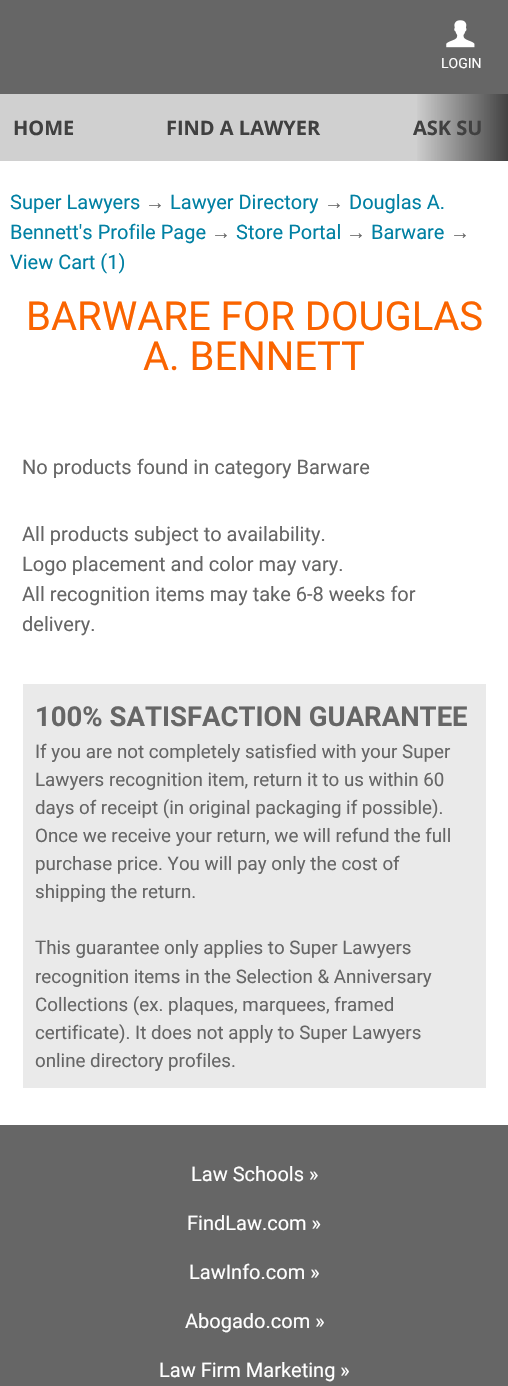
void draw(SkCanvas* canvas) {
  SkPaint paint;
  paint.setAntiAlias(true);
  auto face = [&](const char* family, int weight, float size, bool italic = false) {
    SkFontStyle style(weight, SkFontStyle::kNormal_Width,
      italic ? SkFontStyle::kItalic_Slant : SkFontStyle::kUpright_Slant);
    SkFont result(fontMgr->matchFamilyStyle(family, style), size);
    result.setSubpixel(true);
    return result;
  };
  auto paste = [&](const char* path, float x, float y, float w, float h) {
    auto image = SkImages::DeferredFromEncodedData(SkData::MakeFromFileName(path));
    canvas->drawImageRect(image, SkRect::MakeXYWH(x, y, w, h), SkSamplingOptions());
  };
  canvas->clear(0xffffffff);
  paint.setColor(0xff666666);
  canvas->drawRect(SkRect::MakeXYWH(0, 0, 508, 94), paint);
  paste("img/1.png", 446, 20, 29, 28);
  {
    const struct { float x, y, w, h; SkColor color; } items[] = {
      {0, 94, 508, 67, 0xffd0d0d0},
      {23, 684, 463, 404, 0xffeaeaea},
      {0, 1125, 508, 261, 0xff666666},
    };
    for (auto [x, y, w, h, color] : items) {
      paint.setColor(color);
      canvas->drawRect(SkRect::MakeXYWH(x, y, w, h), paint);
    }
  }
  auto f0 = face("Roboto", 400, 14);
  paint.setColor(0xffffffff);
  canvas->drawString("LOGIN", 441, 68, f0, paint);
  auto f1 = face("Open Sans", 700, 20);
  paint.setColor(0xff404040);
  {
    const struct { const char* s; float x, y; } items[] = {
      {"HOME", 13, 135},
      {"FIND A LAWYER", 166, 135},
      {"ASK SU", 413, 135},
    };
    for (auto [s, x, y] : items) {
      canvas->drawString(s, x, y, f1, paint);
    }
  }
  {
    const SkColor colors[] = {0x00404040, 0xff404040};
    const float stops[] = {0, 1};
    const SkPoint ends[] = {{415, 94}, {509, 94}};
    paint.setShader(SkGradientShader::MakeLinear(ends, colors, stops, 2, SkTileMode::kClamp));
    paint.setAlpha(255);
  }
  canvas->drawRect(SkRect::MakeXYWH(417, 94, 91, 67), paint);
  auto f2 = face("Roboto", 400, 20);
  paint.setShader(nullptr);
  paint.setColor(0xff0080a3);
  canvas->drawString("Super Lawyers", 10, 209, f2, paint);
  auto f3 = face("Liberation Sans", 400, 20);
  paint.setColor(0xff666666);
  canvas->drawString("→", 145, 209, f3, paint);
  paint.setColor(0xff0080a3);
  canvas->drawString("Lawyer Directory", 170, 209, f2, paint);
  paint.setColor(0xff666666);
  canvas->drawString("→", 324, 209, f3, paint);
  paint.setColor(0xff0080a3);
  canvas->drawString("Douglas A.", 349, 209, f2, paint);
  canvas->drawString("Bennett's Profile Page", 10, 239, f2, paint);
  paint.setColor(0xff666666);
  canvas->drawString("→", 211, 239, f3, paint);
  paint.setColor(0xff0080a3);
  canvas->drawString("Store Portal", 236, 239, f2, paint);
  paint.setColor(0xff666666);
  canvas->drawString("→", 346, 239, f3, paint);
  paint.setColor(0xff0080a3);
  canvas->drawString("Barware", 371, 239, f2, paint);
  paint.setColor(0xff666666);
  canvas->drawString("→", 450, 239, f3, paint);
  paint.setColor(0xff0080a3);
  canvas->drawString("View Cart (1)", 10, 269, f2, paint);
  auto f4 = face("Roboto", 400, 40);
  paint.setColor(0xfffa6400);
  canvas->drawString("BARWARE FOR DOUGLAS", 26, 330, f4, paint);
  canvas->drawString("A. BENNETT", 143, 370, f4, paint);
  paint.setColor(0xff666666);
  {
    const struct { const char* s; float x, y; } items[] = {
      {"No products found in category Barware", 22, 474},
      {"All products subject to availability.", 22, 541},
      {"Logo placement and color may vary.", 22, 571},
      {"All recognition items may take 6-8 weeks for", 22, 601},
      {"delivery.", 22, 631},
    };
    for (auto [s, x, y] : items) {
      canvas->drawString(s, x, y, f2, paint);
    }
  }
  auto f5 = face("Roboto", 700, 27.5f);
  canvas->drawString("100% SATISFACTION GUARANTEE", 35, 726, f5, paint);
  auto f6 = face("Roboto", 400, 18.75f);
  {
    const struct { const char* s; float x, y; } items[] = {
      {"If you are not completely satisfied with your Super", 35, 758},
      {"Lawyers recognition item, return it to us within 60", 35, 786},
      {"days of receipt (in original packaging if possible).", 35, 814},
      {"Once we receive your return, we will refund the full", 35, 842},
      {"purchase price. You will pay only the cost of", 35, 870},
      {"shipping the return.", 35, 898},
      {"This guarantee only applies to Super Lawyers", 35, 954},
      {"recognition items in the Selection & Anniversary", 35, 983},
      {"Collections (ex. plaques, marquees, framed", 35, 1011},
      {"certificate). It does not apply to Super Lawyers", 35, 1039},
      {"online directory profiles.", 35, 1067},
    };
    for (auto [s, x, y] : items) {
      canvas->drawString(s, x, y, f6, paint);
    }
  }
  paint.setColor(0xffffffff);
  {
    const struct { const char* s; float x, y; } items[] = {
      {"Law Schools »", 191, 1181},
      {"FindLaw.com »", 187, 1230},
      {"LawInfo.com »", 189, 1279},
      {"Abogado.com »", 185, 1328},
      {"Law Firm Marketing »", 159, 1377},
    };
    for (auto [s, x, y] : items) {
      canvas->drawString(s, x, y, f2, paint);
    }
  }
}
